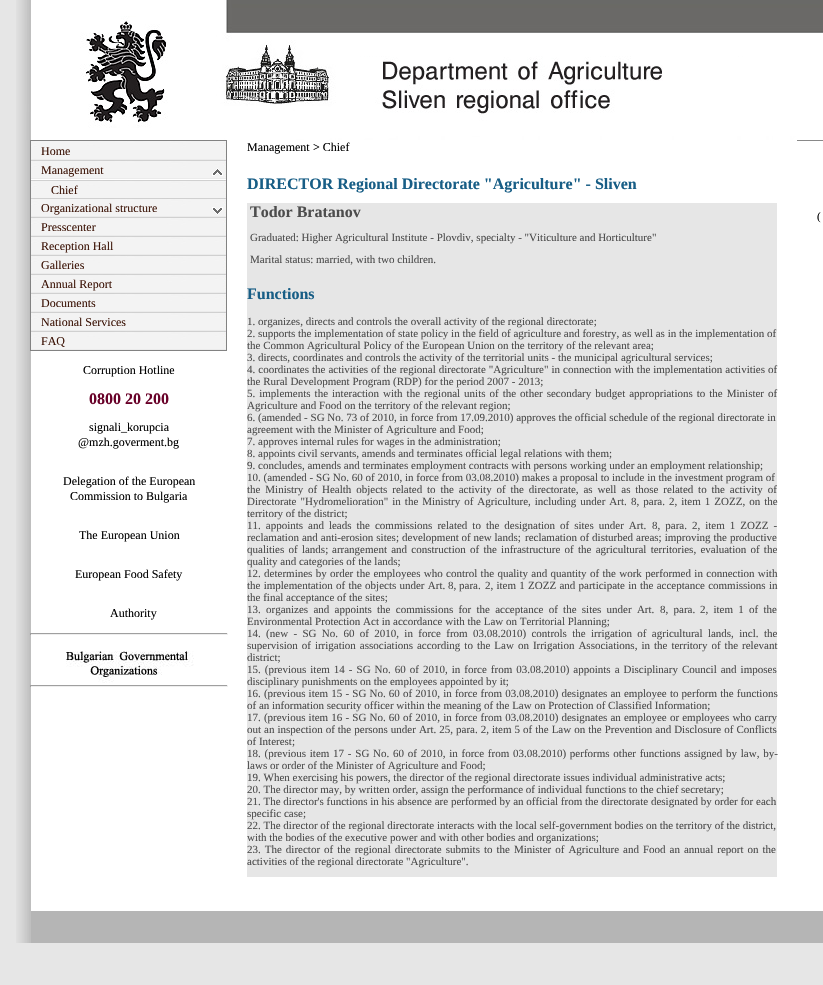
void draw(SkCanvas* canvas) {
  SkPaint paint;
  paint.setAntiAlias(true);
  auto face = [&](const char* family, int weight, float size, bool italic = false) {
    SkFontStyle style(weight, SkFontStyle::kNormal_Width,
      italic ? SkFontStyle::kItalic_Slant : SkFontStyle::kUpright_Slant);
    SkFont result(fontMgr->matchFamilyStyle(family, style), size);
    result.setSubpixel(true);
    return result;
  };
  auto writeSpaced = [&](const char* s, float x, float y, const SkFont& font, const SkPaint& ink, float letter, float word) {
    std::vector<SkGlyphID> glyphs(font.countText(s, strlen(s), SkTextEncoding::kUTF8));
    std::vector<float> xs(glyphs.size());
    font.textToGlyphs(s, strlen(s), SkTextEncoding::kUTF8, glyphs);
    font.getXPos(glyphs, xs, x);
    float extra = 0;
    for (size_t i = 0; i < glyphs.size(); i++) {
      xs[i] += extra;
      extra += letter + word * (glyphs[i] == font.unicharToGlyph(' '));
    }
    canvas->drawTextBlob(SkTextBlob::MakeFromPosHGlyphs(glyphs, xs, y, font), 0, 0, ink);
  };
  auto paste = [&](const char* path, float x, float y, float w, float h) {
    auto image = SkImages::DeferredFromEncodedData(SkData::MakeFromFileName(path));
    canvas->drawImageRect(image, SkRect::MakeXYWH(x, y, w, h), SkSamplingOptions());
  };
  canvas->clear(0xffe6e6e6);
  paste("img/1.png", 16, 0, 807, 140);
  paste("img/2.png", 360, 57, 463, 69);
  paste("img/3.png", 16, 140, 807, 771);
  paint.setStroke(true);
  paint.setStrokeWidth(1);
  paint.setColor(0xff828282);
  canvas->drawRect(SkRect::MakeXYWH(30.5f, 140.5f, 196, 210), paint);
  paste("img/4.png", 31, 141, 195, 18);
  paint.setStroke(false);
  paint.setColor(0xffebebeb);
  canvas->drawRect(SkRect::MakeXYWH(31, 159, 195, 1), paint);
  paste("img/5.png", 31, 160, 195, 18);
  canvas->drawRect(SkRect::MakeXYWH(31, 178, 195, 1), paint);
  paste("img/6.png", 212, 168, 11, 8);
  paste("img/5.png", 31, 180, 195, 18);
  paste("img/5.png", 31, 198, 195, 18);
  canvas->drawRect(SkRect::MakeXYWH(31, 216, 195, 1), paint);
  paste("img/7.png", 212, 207, 11, 8);
  paste("img/5.png", 31, 217, 195, 18);
  canvas->drawRect(SkRect::MakeXYWH(31, 235, 195, 1), paint);
  paste("img/5.png", 31, 236, 195, 18);
  canvas->drawRect(SkRect::MakeXYWH(31, 254, 195, 1), paint);
  paste("img/5.png", 31, 255, 195, 18);
  canvas->drawRect(SkRect::MakeXYWH(31, 273, 195, 1), paint);
  paste("img/5.png", 31, 274, 195, 18);
  canvas->drawRect(SkRect::MakeXYWH(31, 292, 195, 1), paint);
  paste("img/5.png", 31, 293, 195, 18);
  canvas->drawRect(SkRect::MakeXYWH(31, 311, 195, 1), paint);
  paste("img/5.png", 31, 312, 195, 18);
  canvas->drawRect(SkRect::MakeXYWH(31, 330, 195, 1), paint);
  paste("img/5.png", 31, 331, 195, 18);
  {
    const struct { float x, y, w, h; SkColor color; } items[] = {
      {31, 349, 195, 1, 0xffebebeb},
      {30, 633, 198, 1, 0xff9f9f9f},
      {227, 633, 1, 2, 0xffeeeeee},
      {30, 634, 198, 1, 0xffeeeeee},
      {30, 633, 1, 2, 0xff9f9f9f},
    };
    for (auto [x, y, w, h, color] : items) {
      paint.setColor(color);
      canvas->drawRect(SkRect::MakeXYWH(x, y, w, h), paint);
    }
  }
  paste("img/8.png", 66, 651, 128, 32);
  {
    const struct { float x, y, w, h; SkColor color; } items[] = {
      {30, 685, 198, 1, 0xff9f9f9f},
      {227, 685, 1, 2, 0xffeeeeee},
      {30, 686, 198, 1, 0xffeeeeee},
      {30, 685, 1, 2, 0xff9f9f9f},
      {247, 203, 530, 674, 0xffe6e6e6},
      {797, 140, 26, 1, 0xff898989},
    };
    for (auto [x, y, w, h, color] : items) {
      paint.setColor(color);
      canvas->drawRect(SkRect::MakeXYWH(x, y, w, h), paint);
    }
  }
  paste("img/9.png", 16, 911, 807, 32);
  auto f0 = face("Liberation Serif", 400, 12);
  paint.setColor(0xff3d1508);
  {
    const struct { const char* s; float x, y; } items[] = {
      {"Home", 41, 155},
      {"Management", 41, 174},
      {"Chief", 51, 194},
      {"Organizational structure", 41, 212},
      {"Presscenter", 41, 231},
      {"Reception Hall", 41, 250},
      {"Galleries", 41, 269},
      {"Annual Report", 41, 288},
      {"Documents", 41, 307},
      {"National Services", 41, 326},
      {"FAQ", 41, 345},
    };
    for (auto [s, x, y] : items) {
      canvas->drawString(s, x, y, f0, paint);
    }
  }
  paint.setColor(0xff000000);
  canvas->drawString("Corruption Hotline", 83, 374, f0, paint);
  auto f1 = face("Liberation Serif", 700, 16);
  paint.setColor(0xff680028);
  canvas->drawString("0800 20 200", 89, 404, f1, paint);
  paint.setColor(0xff000000);
  {
    const struct { const char* s; float x, y; } items[] = {
      {"signali_korupcia", 89, 431},
      {"@mzh.goverment.bg", 78, 446},
      {"Delegation of the European", 63, 485},
      {"Commission to Bulgaria", 70, 500},
      {"The European Union", 79, 539},
      {"European Food Safety", 75, 578},
      {"Authority", 110, 617},
      {"Management", 247, 151},
      {"> Chief", 313, 151},
    };
    for (auto [s, x, y] : items) {
      canvas->drawString(s, x, y, f0, paint);
    }
  }
  paint.setColor(0xff185e86);
  canvas->drawString("DIRECTOR Regional Directorate \"Agriculture\" - Sliven", 247, 189, f1, paint);
  paint.setColor(0xff4d4d4d);
  canvas->drawString("Todor Bratanov", 250, 217, f1, paint);
  auto f2 = face("Liberation Serif", 400, 11);
  canvas->drawString("Graduated: Higher Agricultural Institute - Plovdiv, specialty - \"Viticulture and Horticulture\"", 250, 241, f2, paint);
  canvas->drawString("Marital status: married, with two children.", 250, 263, f2, paint);
  paint.setColor(0xff185e86);
  canvas->drawString("Functions", 247, 299, f1, paint);
  paint.setColor(0xff4d4d4d);
  {
    const struct { const char* s; float x, y; } items[] = {
      {"1. organizes, directs and controls the overall activity of the regional directorate;", 247, 325},
      {"2. supports the implementation of state policy in the field of agriculture and forestry, as well as in the implementation of", 247, 337},
      {"the Common Agricultural Policy of the European Union on the territory of the relevant area;", 247, 349},
      {"3. directs, coordinates and controls the activity of the territorial units - the municipal agricultural services;", 247, 361},
    };
    for (auto [s, x, y] : items) {
      canvas->drawString(s, x, y, f2, paint);
    }
  }
  writeSpaced("4. coordinates the activities of the regional directorate \"Agriculture\" in connection with the implementation activities of", 247, 373, f2, paint, 0, 0.25f);
  canvas->drawString("the Rural Development Program (RDP) for the period 2007 - 2013;", 247, 385, f2, paint);
  writeSpaced("5. implements the interaction with the regional units of the other secondary budget appropriations to the Minister of", 247, 397, f2, paint, 0, 1.25f);
  {
    const struct { const char* s; float x, y; } items[] = {
      {"Agriculture and Food on the territory of the relevant region;", 247, 409},
      {"6. (amended - SG No. 73 of 2010, in force from 17.09.2010) approves the official schedule of the regional directorate in", 247, 421},
      {"agreement with the Minister of Agriculture and Food;", 247, 433},
      {"7. approves internal rules for wages in the administration;", 247, 445},
      {"8. appoints civil servants, amends and terminates official legal relations with them;", 247, 457},
      {"9. concludes, amends and terminates employment contracts with persons working under an employment relationship;", 247, 469},
      {"10. (amended - SG No. 60 of 2010, in force from 03.08.2010) makes a proposal to include in the investment program of", 247, 481},
    };
    for (auto [s, x, y] : items) {
      canvas->drawString(s, x, y, f2, paint);
    }
  }
  writeSpaced("the Ministry of Health objects related to the activity of the directorate, as well as those related to the activity of", 247, 493, f2, paint, 0, 2.1f);
  {
    const struct { const char* s; float x, y; } items[] = {
      {"Directorate \"Hydromelioration\" in the Ministry of Agriculture, including under Art.", 247, 505},
      {"8, para.", 631, 505},
      {"2, item 1 ZOZZ, on the", 669, 505},
    };
    for (auto [s, x, y] : items) {
      writeSpaced(s, x, y, f2, paint, 0, 1.25f);
    }
  }
  canvas->drawString("territory of the district;", 247, 517, f2, paint);
  {
    const struct { const char* s; float x, y; } items[] = {
      {"11. appoints and leads the commissions related to the designation of sites under Art.", 247, 529},
      {"8, para.", 652, 529},
      {"2, item 1 ZOZZ -", 692, 529},
    };
    for (auto [s, x, y] : items) {
      writeSpaced(s, x, y, f2, paint, 0, 2.25f);
    }
  }
  writeSpaced("reclamation and anti-erosion sites;", 247, 541, f2, paint, 0, 0.25f);
  canvas->drawString("development of new lands;", 402, 541, f2, paint);
  writeSpaced("reclamation of disturbed areas; improving the productive", 525, 541, f2, paint, 0, 0.25f);
  writeSpaced("qualities of lands;", 247, 553, f2, paint, 0, 1.5f);
  writeSpaced("arrangement and construction of the infrastructure of the agricultural territories, evaluation of the", 332, 553, f2, paint, 0, 1.5f);
  canvas->drawString("quality and categories of the lands;", 247, 565, f2, paint);
  writeSpaced("12. determines by order the employees who control the quality and quantity of the work performed in connection with", 247, 577, f2, paint, 0, 0.6f);
  writeSpaced("the implementation of the objects under Art.", 247, 589, f2, paint, 0, 0.5f);
  canvas->drawString("8, para.", 448, 589, f2, paint);
  writeSpaced("2, item 1 ZOZZ and participate in the acceptance commissions in", 485, 589, f2, paint, 0, 0.5f);
  canvas->drawString("the final acceptance of the sites;", 247, 601, f2, paint);
  {
    const struct { const char* s; float x, y; } items[] = {
      {"13. organizes and appoints the commissions for the acceptance of the sites under Art.", 247, 613},
      {"8, para.", 660, 613},
      {"2, item 1 of the", 700, 613},
    };
    for (auto [s, x, y] : items) {
      writeSpaced(s, x, y, f2, paint, 0, 2.5f);
    }
  }
  canvas->drawString("Environmental Protection Act in accordance with the Law on Territorial Planning;", 247, 625, f2, paint);
  writeSpaced("14. (new - SG No. 60 of 2010, in force from 03.08.2010) controls the irrigation of agricultural lands, incl.", 247, 637, f2, paint, 0, 2.6f);
  canvas->drawString("the", 764, 637, f2, paint);
  writeSpaced("supervision of irrigation associations according to the Law on Irrigation Associations, in the territory of the relevant", 247, 649, f2, paint, 0, 1.25f);
  canvas->drawString("district;", 247, 661, f2, paint);
  writeSpaced("15. (previous item 14 - SG No. 60 of 2010, in force from 03.08.2010) appoints a Disciplinary Council and imposes", 247, 673, f2, paint, 0, 1.25f);
  canvas->drawString("disciplinary punishments on the employees appointed by it;", 247, 685, f2, paint);
  writeSpaced("16. (previous item 15 - SG No. 60 of 2010, in force from 03.08.2010) designates an employee to perform the functions", 247, 697, f2, paint, 0, 0.4f);
  canvas->drawString("of an information security officer within the meaning of the Law on Protection of Classified Information;", 247, 709, f2, paint);
  writeSpaced("17. (previous item 16 - SG No. 60 of 2010, in force from 03.08.2010) designates an employee or employees who carry", 247, 721, f2, paint, 0, 0.4f);
  writeSpaced("out an inspection of the persons under Art. 25, para. 2, item 5 of the Law on the Prevention and Disclosure of Conflicts", 247, 733, f2, paint, 0, 0.25f);
  canvas->drawString("of Interest;", 247, 745, f2, paint);
  writeSpaced("18. (previous item 17 - SG No. 60 of 2010, in force from 03.08.2010) performs other functions assigned by law, by-", 247, 757, f2, paint, 0, 1);
  {
    const struct { const char* s; float x, y; } items[] = {
      {"laws or order of the Minister of Agriculture and Food;", 247, 769},
      {"19. When exercising his powers, the director of the regional directorate issues individual administrative acts;", 247, 781},
      {"20. The director may, by written order, assign the performance of individual functions to the chief secretary;", 247, 793},
      {"21. The director's functions in his absence are performed by an official from the directorate designated by order for each", 247, 805},
      {"specific case;", 247, 817},
      {"22. The director of the regional directorate interacts with the local self-government bodies on the territory of the district,", 247, 829},
      {"with the bodies of the executive power and with other bodies and organizations;", 247, 841},
    };
    for (auto [s, x, y] : items) {
      canvas->drawString(s, x, y, f2, paint);
    }
  }
  writeSpaced("23. The director of the regional directorate submits to the Minister of Agriculture and Food an annual report on the", 247, 853, f2, paint, 0, 1.25f);
  canvas->drawString("activities of the regional directorate \"Agriculture\".", 247, 865, f2, paint);
  paint.setColor(0xff000000);
  canvas->drawString("(", 817, 220, f2, paint);
}
